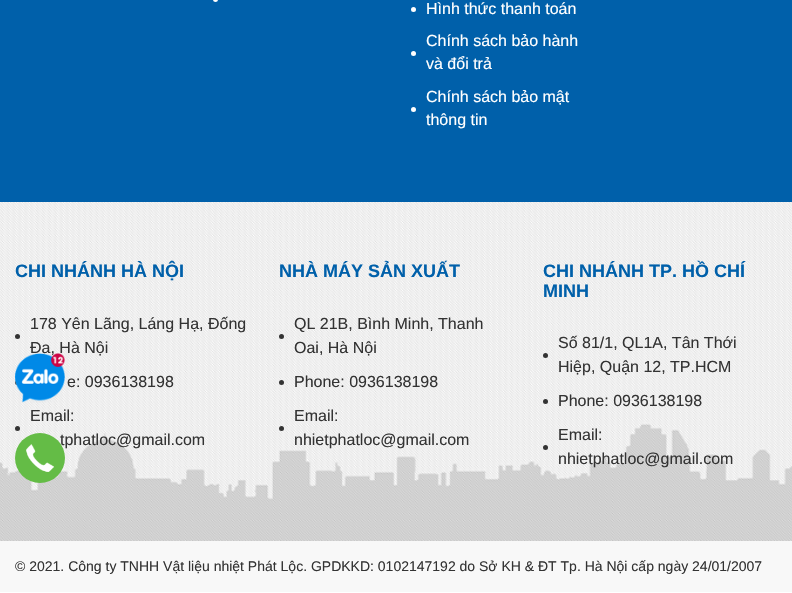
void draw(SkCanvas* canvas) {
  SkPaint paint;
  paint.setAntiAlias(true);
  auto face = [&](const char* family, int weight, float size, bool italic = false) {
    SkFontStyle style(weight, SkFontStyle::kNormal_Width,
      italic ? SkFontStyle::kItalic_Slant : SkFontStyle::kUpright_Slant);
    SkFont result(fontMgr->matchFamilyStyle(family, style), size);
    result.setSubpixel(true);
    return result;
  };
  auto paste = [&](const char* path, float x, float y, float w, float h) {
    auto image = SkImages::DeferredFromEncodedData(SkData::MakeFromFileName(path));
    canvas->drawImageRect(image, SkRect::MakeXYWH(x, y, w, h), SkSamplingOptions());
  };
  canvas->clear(0xffffffff);
  paint.setColor(0xff0060aa);
  canvas->drawRect(SkRect::MakeXYWH(0, 0, 792, 202), paint);
  paint.setColor(0xffffffff);
  canvas->drawCircle(215.5f, -0.5f, 2.5f, paint);
  canvas->drawCircle(413.5f, 9.5f, 2.5f, paint);
  canvas->drawCircle(413.5f, 53.5f, 2.5f, paint);
  canvas->drawCircle(413.5f, 109.5f, 2.5f, paint);
  paste("img/1.png", 0, 202, 792, 339);
  paint.setColor(0xff333333);
  canvas->drawCircle(17.5f, 336.5f, 2.5f, paint);
  canvas->drawCircle(17.5f, 382.5f, 2.5f, paint);
  canvas->drawCircle(17.5f, 428.5f, 2.5f, paint);
  canvas->drawCircle(281.5f, 336.5f, 2.5f, paint);
  canvas->drawCircle(281.5f, 382.5f, 2.5f, paint);
  canvas->drawCircle(281.5f, 428.5f, 2.5f, paint);
  canvas->drawCircle(545.5f, 355.5f, 2.5f, paint);
  canvas->drawCircle(545.5f, 401.5f, 2.5f, paint);
  canvas->drawCircle(545.5f, 447.5f, 2.5f, paint);
  paint.setColor(0xfff8f8f8);
  canvas->drawRect(SkRect::MakeXYWH(0, 541, 792, 51), paint);
  auto f0 = face("Liberation Sans", 400, 16);
  paint.setColor(0xffffffff);
  {
    const struct { const char* s; float x, y; } items[] = {
      {"Hình thức thanh toán", 426, 14},
      {"Chính sách bảo hành", 426, 46},
      {"và đổi trả", 426, 69},
      {"Chính sách bảo mật", 426, 102},
      {"thông tin", 426, 125},
    };
    for (auto [s, x, y] : items) {
      canvas->drawString(s, x, y, f0, paint);
    }
  }
  auto f1 = face("Liberation Sans", 700, 18);
  paint.setColor(0xff0060aa);
  canvas->drawString("CHI NHÁNH HÀ NỘI", 15, 277, f1, paint);
  paint.setColor(0xff333333);
  {
    const struct { const char* s; float x, y; } items[] = {
      {"178 Yên Lãng, Láng Hạ, Đống", 30, 329},
      {"Đa, Hà Nội", 30, 353},
      {"e: 0936138198", 67, 387},
      {"Email:", 30, 421},
      {"tphatloc@gmail.com", 60, 445},
    };
    for (auto [s, x, y] : items) {
      canvas->drawString(s, x, y, f0, paint);
    }
  }
  paint.setColor(0xff0060aa);
  canvas->drawString("NHÀ MÁY SẢN XUẤT", 279, 277, f1, paint);
  paint.setColor(0xff333333);
  {
    const struct { const char* s; float x, y; } items[] = {
      {"QL 21B, Bình Minh, Thanh", 294, 329},
      {"Oai, Hà Nội", 294, 353},
      {"Phone: 0936138198", 294, 387},
      {"Email:", 294, 421},
      {"nhietphatloc@gmail.com", 294, 445},
    };
    for (auto [s, x, y] : items) {
      canvas->drawString(s, x, y, f0, paint);
    }
  }
  paint.setColor(0xff0060aa);
  canvas->drawString("CHI NHÁNH TP. HỒ CHÍ", 543, 277, f1, paint);
  canvas->drawString("MINH", 543, 297, f1, paint);
  paint.setColor(0xff333333);
  {
    const struct { const char* s; float x, y; } items[] = {
      {"Số 81/1, QL1A, Tân Thới", 558, 348},
      {"Hiệp, Quận 12, TP.HCM", 558, 372},
      {"Phone: 0936138198", 558, 406},
      {"Email:", 558, 440},
      {"nhietphatloc@gmail.com", 558, 464},
    };
    for (auto [s, x, y] : items) {
      canvas->drawString(s, x, y, f0, paint);
    }
  }
  paste("img/2.png", 15, 353, 50, 50);
  paint.setColor(0xff64bc46);
  canvas->drawCircle(40, 458, 25, paint);
  paste("img/3.png", 26, 444, 28, 28);
  auto f2 = face("Liberation Sans", 400, 14);
  paint.setColor(0xff333333);
  canvas->drawString("© 2021. Công ty TNHH Vật liệu nhiệt Phát Lộc. GPDKKD: 0102147192 do Sở KH & ĐT Tp. Hà Nội cấp ngày 24/01/2007", 15, 571, f2, paint);
}
